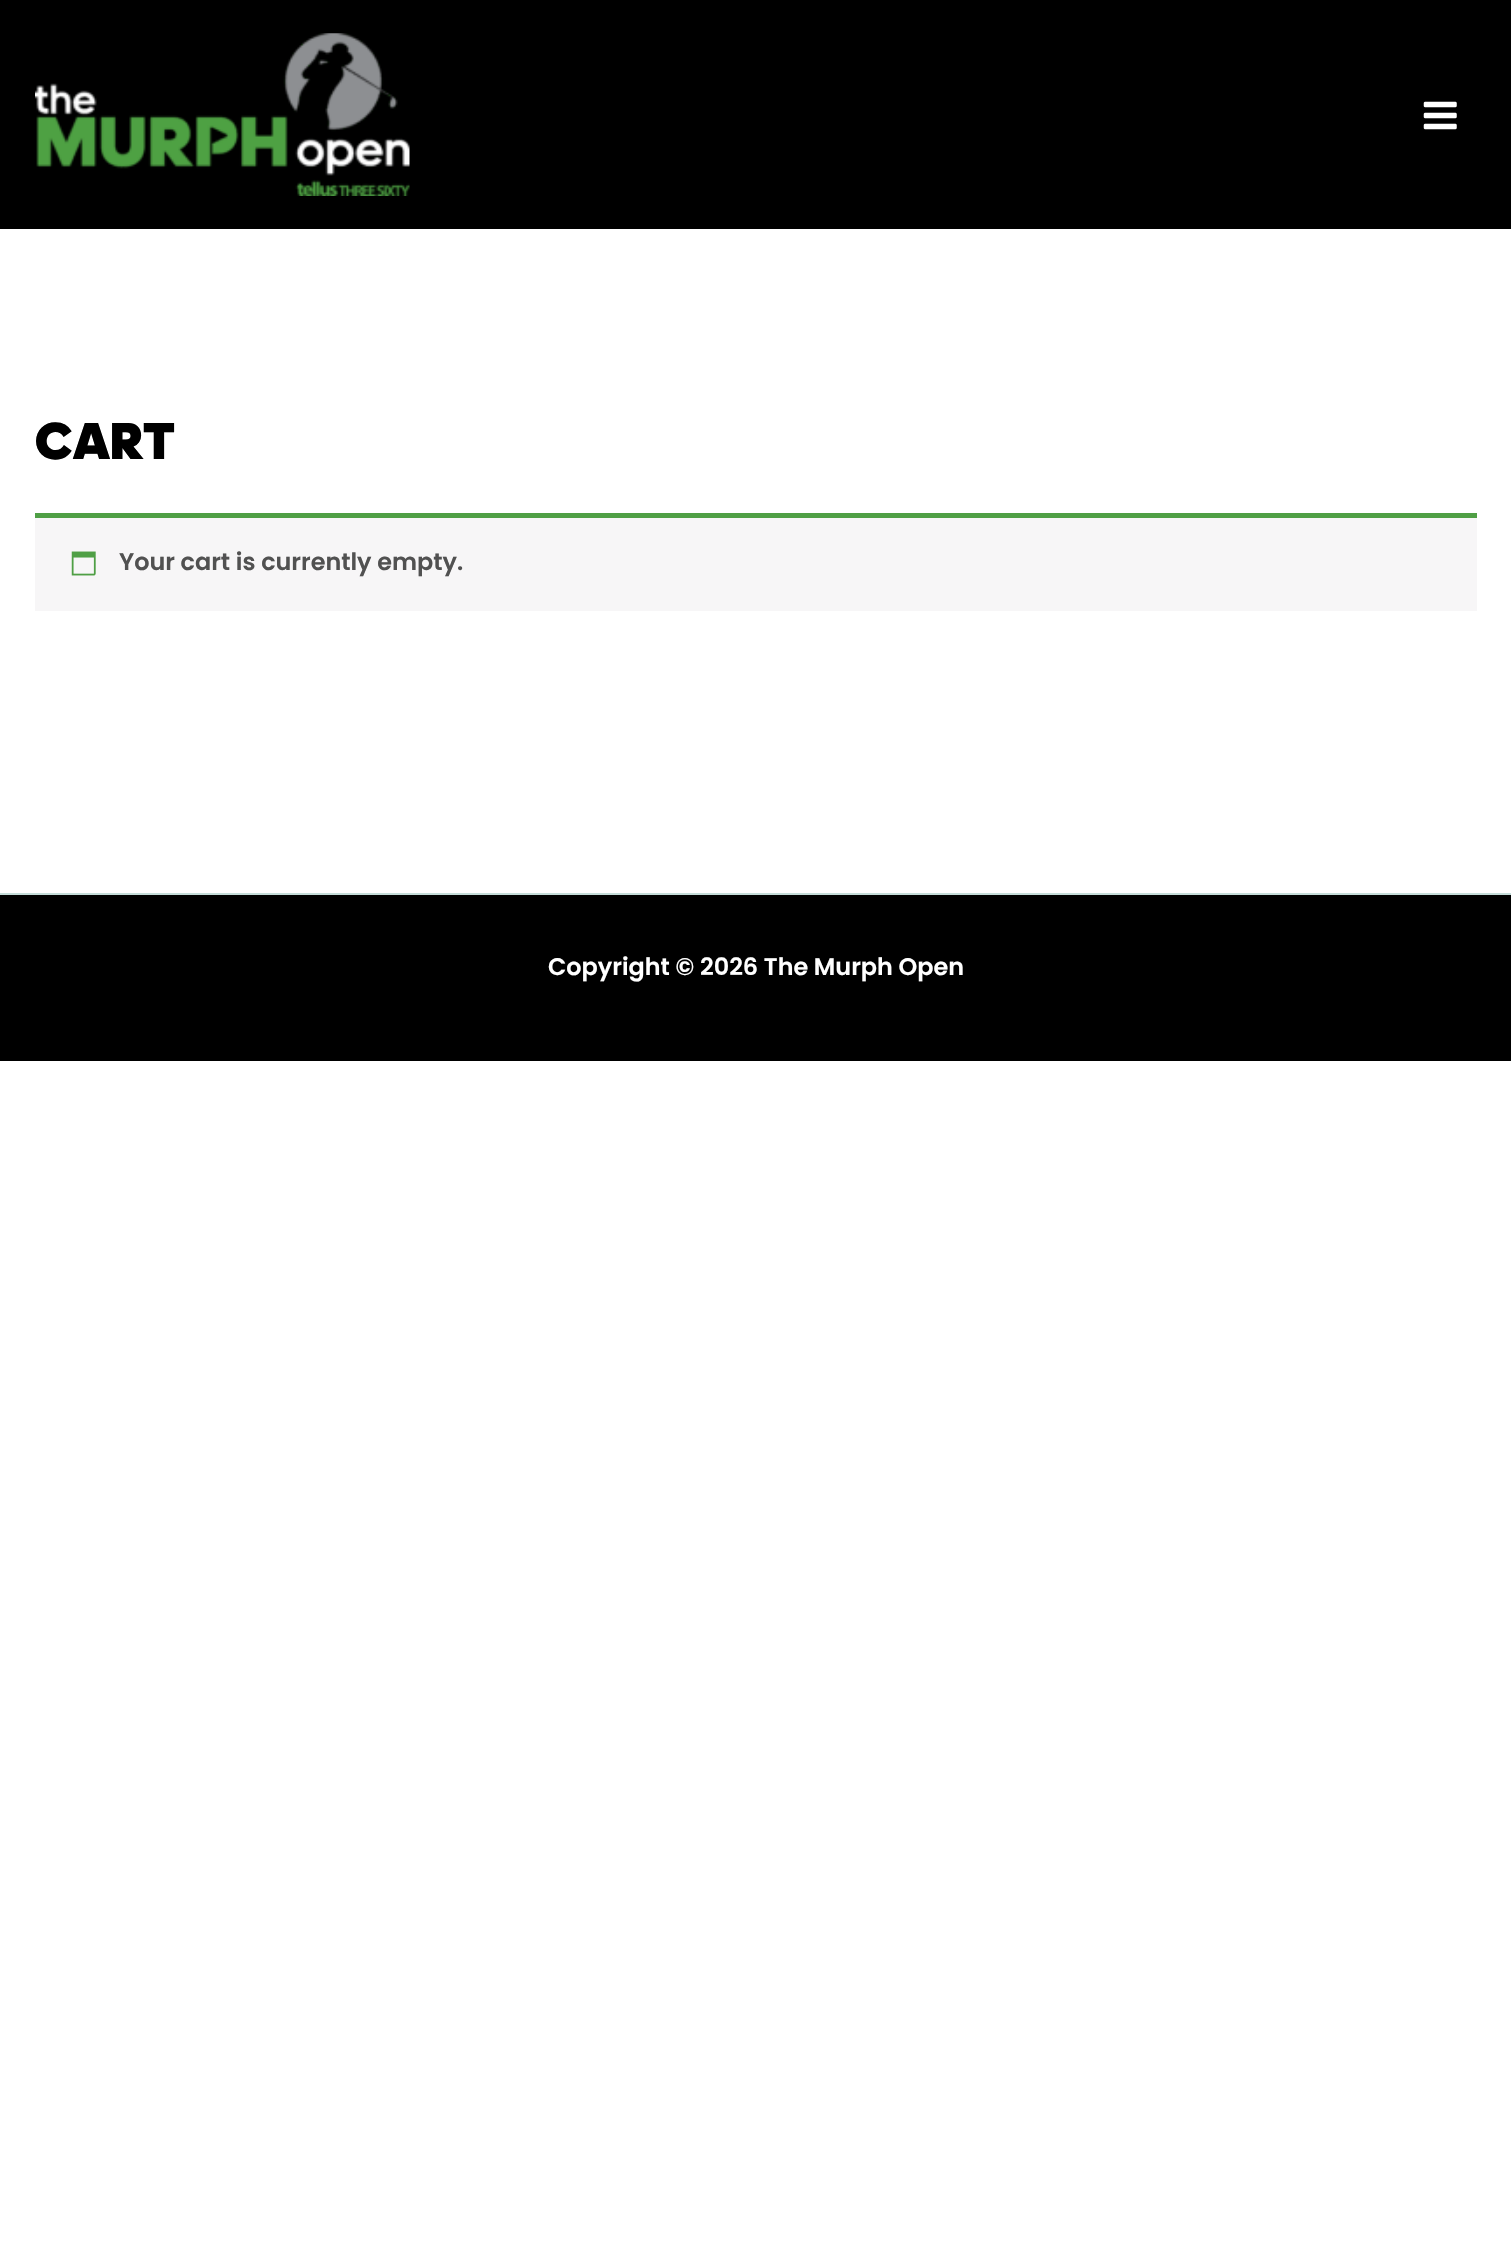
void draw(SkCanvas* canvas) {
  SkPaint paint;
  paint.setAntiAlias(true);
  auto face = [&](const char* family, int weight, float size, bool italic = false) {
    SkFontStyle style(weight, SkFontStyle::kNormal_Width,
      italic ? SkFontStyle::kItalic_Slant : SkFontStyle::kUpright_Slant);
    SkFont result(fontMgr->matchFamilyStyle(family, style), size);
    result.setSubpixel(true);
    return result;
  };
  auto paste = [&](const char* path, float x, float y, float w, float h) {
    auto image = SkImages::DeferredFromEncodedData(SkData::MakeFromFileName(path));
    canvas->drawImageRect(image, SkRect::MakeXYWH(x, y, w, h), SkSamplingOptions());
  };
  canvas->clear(0xffffffff);
  paint.setColor(0xff000000);
  canvas->drawRect(SkRect::MakeXYWH(0, 0, 1511, 229), paint);
  paste("img/1.png", 35, 33, 375, 163);
  paste("img/2.png", 1423, 101, 34, 29);
  paint.setColor(0xfff7f6f7);
  canvas->drawRect(SkRect::MakeXYWH(35, 518, 1442, 93), paint);
  paint.setColor(0xff4f9f45);
  canvas->drawRect(SkRect::MakeXYWH(35, 513, 1442, 5), paint);
  paste("img/3.png", 71, 551, 25, 25);
  paint.setColor(0xff000000);
  canvas->drawRect(SkRect::MakeXYWH(0, 895, 1511, 166), paint);
  paint.setColor(0xffc5ddd9);
  canvas->drawRect(SkRect::MakeXYWH(0, 893, 1511, 2), paint);
  auto f0 = face("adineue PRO", 900, 52.5f);
  paint.setColor(0xff000000);
  canvas->drawString("CART", 35, 459, f0, paint);
  auto f1 = face("Poppins", 600, 23.9f);
  paint.setColor(0xff515151);
  canvas->drawString("Your cart is currently empty.", 119, 570, f1, paint);
  paint.setColor(0xffffffff);
  canvas->drawString("Copyright © 2026 The Murph Open", 548, 975, f1, paint);
}
